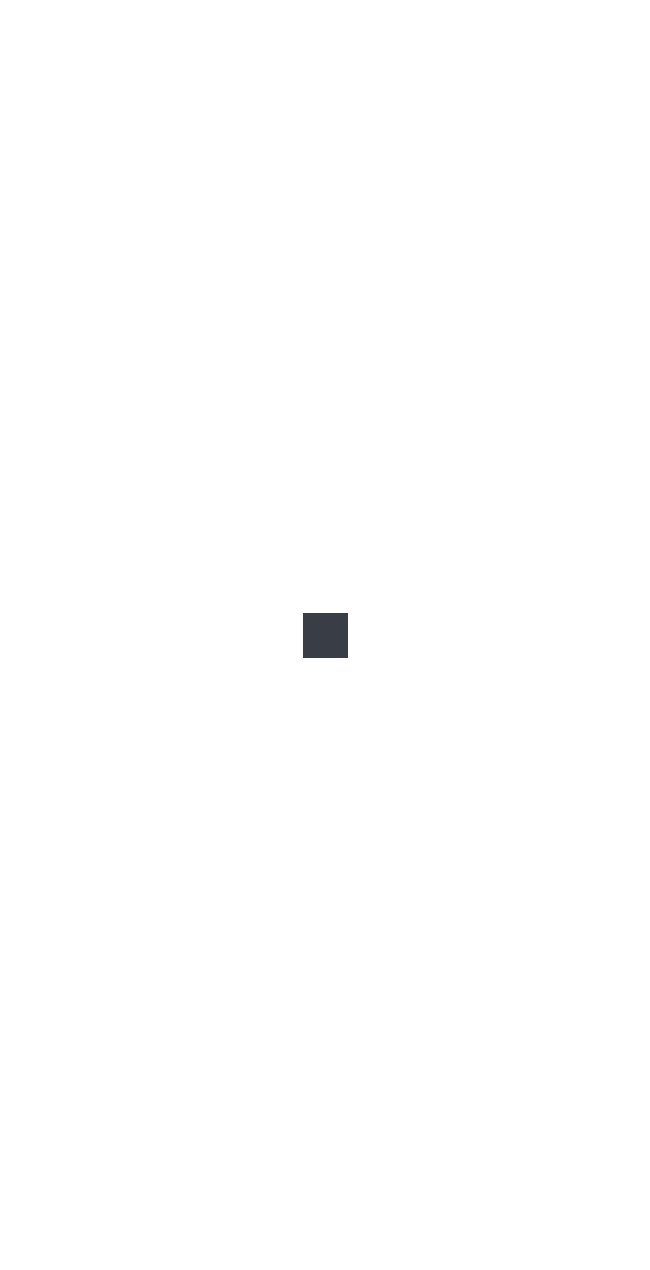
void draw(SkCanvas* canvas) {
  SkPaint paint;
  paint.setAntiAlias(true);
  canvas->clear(0xffffffff);
  paint.setColor(0xff393e46);
  canvas->drawRect(SkRect::MakeXYWH(303, 613, 45, 45), paint);
}
